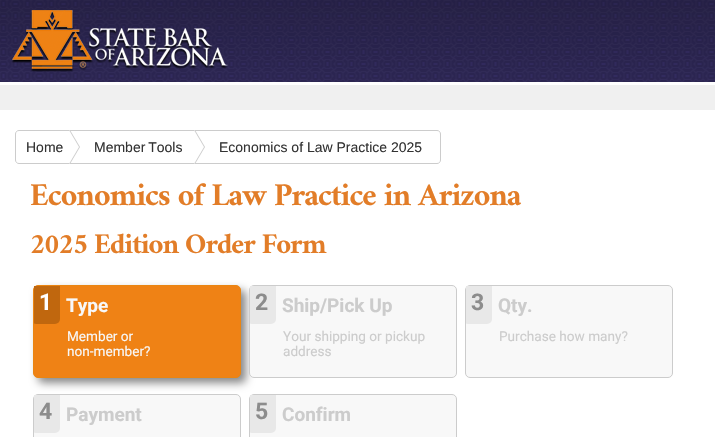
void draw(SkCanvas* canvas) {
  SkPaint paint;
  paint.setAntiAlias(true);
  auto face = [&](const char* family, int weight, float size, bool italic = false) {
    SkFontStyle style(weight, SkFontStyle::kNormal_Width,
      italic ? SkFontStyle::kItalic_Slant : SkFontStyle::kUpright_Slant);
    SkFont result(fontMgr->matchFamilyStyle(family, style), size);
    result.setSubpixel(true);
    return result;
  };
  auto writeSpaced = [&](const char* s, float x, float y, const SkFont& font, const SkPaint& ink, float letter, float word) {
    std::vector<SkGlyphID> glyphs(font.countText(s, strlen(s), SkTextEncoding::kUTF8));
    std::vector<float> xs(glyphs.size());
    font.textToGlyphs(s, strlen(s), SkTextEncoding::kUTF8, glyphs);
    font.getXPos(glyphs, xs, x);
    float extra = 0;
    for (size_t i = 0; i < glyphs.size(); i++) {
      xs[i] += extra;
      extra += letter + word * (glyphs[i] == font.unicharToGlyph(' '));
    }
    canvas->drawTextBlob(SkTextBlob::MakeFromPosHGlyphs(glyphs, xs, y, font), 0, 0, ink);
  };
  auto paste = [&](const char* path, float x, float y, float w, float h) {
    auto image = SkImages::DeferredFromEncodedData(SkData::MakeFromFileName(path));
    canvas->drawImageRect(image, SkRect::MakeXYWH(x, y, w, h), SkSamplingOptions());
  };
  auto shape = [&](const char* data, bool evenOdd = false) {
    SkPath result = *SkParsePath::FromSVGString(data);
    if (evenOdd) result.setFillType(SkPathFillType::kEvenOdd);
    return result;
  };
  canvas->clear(0xfff0f0f0);
  paste("img/1.png", 0, 0, 715, 82);
  paint.setColor(0xffffffff);
  canvas->drawRect(SkRect::MakeXYWH(0, 82, 715, 3), paint);
  paste("img/2.png", 11, 10, 217, 62);
  canvas->drawRect(SkRect::MakeXYWH(0, 110, 715, 327), paint);
  paint.setStroke(true);
  paint.setStrokeWidth(1);
  paint.setColor(0xffcccccc);
  canvas->drawPath(shape("M19 130.5H69.5V163.5H19C17 163.5 15.5 162 15.5 160V134C15.5 132 17 130.5 19 130.5Z"), paint);
  canvas->drawRect(SkRect::MakeXYWH(69.5f, 130.5f, 125, 33), paint);
  paint.setStroke(false);
  canvas->drawPath(shape("M70 164V130L80 147Z"), paint);
  paint.setColor(0xffffffff);
  canvas->drawPath(shape("M69 164V130L79 147Z"), paint);
  canvas->drawPath(shape("M194.5 130.5H437C439 130.5 440.5 132 440.5 134V160C440.5 162 439 163.5 437 163.5H194.5Z"), paint);
  paint.setStroke(true);
  paint.setColor(0xffcccccc);
  canvas->drawPath(shape("M194.5 130.5H437C439 130.5 440.5 132 440.5 134V160C440.5 162 439 163.5 437 163.5H194.5Z"), paint);
  paint.setStroke(false);
  canvas->drawPath(shape("M195 164V130L205 147Z"), paint);
  paint.setColor(0xffffffff);
  canvas->drawPath(shape("M194 164V130L204 147Z"), paint);
  paint.setColor(0xff888888);
  paint.setMaskFilter(SkMaskFilter::MakeBlur(kNormal_SkBlurStyle, 4));
  canvas->drawRoundRect(SkRect::MakeXYWH(38, 290, 208, 93), 5, 5, paint);
  paint.setMaskFilter(nullptr);
  paint.setColor(0xffef8215);
  canvas->drawRoundRect(SkRect::MakeXYWH(33.5f, 285.5f, 207, 92), 4.5f, 4.5f, paint);
  paint.setStroke(true);
  paint.setColor(0xffea8511);
  canvas->drawRoundRect(SkRect::MakeXYWH(33.5f, 285.5f, 207, 92), 4.5f, 4.5f, paint);
  canvas->save();
  canvas->clipRect(SkRect::MakeXYWH(34, 286, 206, 40));
  paint.setStroke(false);
  paint.setColor(0xffc0670e);
  canvas->drawRoundRect(SkRect::MakeXYWH(31, 281, 29, 43), 5, 5, paint);
  canvas->restore();
  paint.setColor(0xfff8f8f8);
  canvas->drawRoundRect(SkRect::MakeXYWH(249.5f, 285.5f, 207, 92), 4.5f, 4.5f, paint);
  paint.setStroke(true);
  paint.setColor(0xffcccccc);
  canvas->drawRoundRect(SkRect::MakeXYWH(249.5f, 285.5f, 207, 92), 4.5f, 4.5f, paint);
  canvas->save();
  canvas->clipRect(SkRect::MakeXYWH(250, 286, 206, 40));
  paint.setStroke(false);
  paint.setColor(0xffe8e8e8);
  canvas->drawRoundRect(SkRect::MakeXYWH(247, 281, 29, 43), 5, 5, paint);
  canvas->restore();
  paint.setColor(0xfff8f8f8);
  canvas->drawRoundRect(SkRect::MakeXYWH(465.5f, 285.5f, 207, 92), 4.5f, 4.5f, paint);
  paint.setStroke(true);
  paint.setColor(0xffcccccc);
  canvas->drawRoundRect(SkRect::MakeXYWH(465.5f, 285.5f, 207, 92), 4.5f, 4.5f, paint);
  canvas->save();
  canvas->clipRect(SkRect::MakeXYWH(466, 286, 206, 40));
  paint.setStroke(false);
  paint.setColor(0xffe8e8e8);
  canvas->drawRoundRect(SkRect::MakeXYWH(463, 281, 29, 43), 5, 5, paint);
  canvas->restore();
  paint.setColor(0xfff8f8f8);
  canvas->drawRoundRect(SkRect::MakeXYWH(33.5f, 394.5f, 207, 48), 4.5f, 4.5f, paint);
  paint.setStroke(true);
  paint.setColor(0xffcccccc);
  canvas->drawRoundRect(SkRect::MakeXYWH(33.5f, 394.5f, 207, 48), 4.5f, 4.5f, paint);
  canvas->save();
  canvas->clipRect(SkRect::MakeXYWH(34, 395, 206, 40));
  paint.setStroke(false);
  paint.setColor(0xffe8e8e8);
  canvas->drawRoundRect(SkRect::MakeXYWH(31, 390, 29, 43), 5, 5, paint);
  canvas->restore();
  paint.setColor(0xfff8f8f8);
  canvas->drawRoundRect(SkRect::MakeXYWH(249.5f, 394.5f, 207, 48), 4.5f, 4.5f, paint);
  paint.setStroke(true);
  paint.setColor(0xffcccccc);
  canvas->drawRoundRect(SkRect::MakeXYWH(249.5f, 394.5f, 207, 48), 4.5f, 4.5f, paint);
  canvas->save();
  canvas->clipRect(SkRect::MakeXYWH(250, 395, 206, 40));
  paint.setStroke(false);
  paint.setColor(0xffe8e8e8);
  canvas->drawRoundRect(SkRect::MakeXYWH(247, 390, 29, 43), 5, 5, paint);
  canvas->restore();
  auto f0 = face("Liberation Sans", 400, 14);
  paint.setColor(0xff333333);
  canvas->drawString("Home", 26, 152, f0, paint);
  writeSpaced("Member Tools", 94, 152, f0, paint, 0, -1);
  canvas->drawString("Economics of Law Practice 2025", 219, 152, f0, paint);
  auto f1 = face("Amiri", 700, 32);
  paint.setColor(0xffe27d28);
  writeSpaced("Economics of Law Practice in Arizona", 30, 205, f1, paint, -1, -0.25f);
  auto f2 = face("Amiri", 700, 28.75f);
  writeSpaced("2025 Edition Order Form", 30, 253, f2, paint, -1, -0.5f);
  auto f3 = face("Roboto", 700, 23);
  paint.setColor(0xffffffff);
  canvas->drawString("1", 39, 310, f3, paint);
  auto f4 = face("Roboto", 700, 19);
  paint.setColor(0xfff8f8f8);
  canvas->drawString("Type", 66, 312, f4, paint);
  auto f5 = face("Roboto", 400, 13.6f);
  canvas->drawString("Member or", 67, 341, f5, paint);
  canvas->drawString("non-member?", 67, 356, f5, paint);
  paint.setColor(0xff8c8c8c);
  canvas->drawString("2", 255, 310, f3, paint);
  paint.setColor(0xffcccccc);
  canvas->drawString("Ship/Pick Up", 282, 312, f4, paint);
  canvas->drawString("Your shipping or pickup", 283, 341, f5, paint);
  canvas->drawString("address", 283, 356, f5, paint);
  paint.setColor(0xff8c8c8c);
  canvas->drawString("3", 471, 310, f3, paint);
  paint.setColor(0xffcccccc);
  canvas->drawString("Qty.", 498, 312, f4, paint);
  canvas->drawString("Purchase how many?", 499, 341, f5, paint);
  paint.setColor(0xff8c8c8c);
  canvas->drawString("4", 39, 419, f3, paint);
  paint.setColor(0xffcccccc);
  canvas->drawString("Payment", 66, 421, f4, paint);
  paint.setColor(0xff8c8c8c);
  canvas->drawString("5", 255, 419, f3, paint);
  paint.setColor(0xffcccccc);
  canvas->drawString("Confirm", 282, 421, f4, paint);
}
